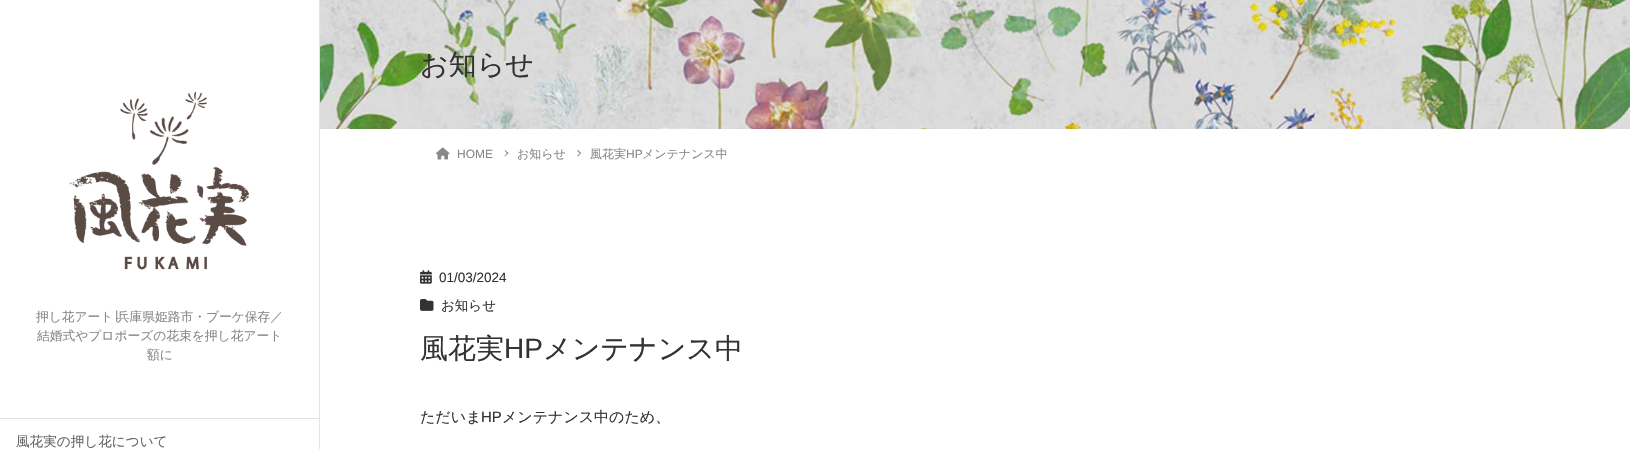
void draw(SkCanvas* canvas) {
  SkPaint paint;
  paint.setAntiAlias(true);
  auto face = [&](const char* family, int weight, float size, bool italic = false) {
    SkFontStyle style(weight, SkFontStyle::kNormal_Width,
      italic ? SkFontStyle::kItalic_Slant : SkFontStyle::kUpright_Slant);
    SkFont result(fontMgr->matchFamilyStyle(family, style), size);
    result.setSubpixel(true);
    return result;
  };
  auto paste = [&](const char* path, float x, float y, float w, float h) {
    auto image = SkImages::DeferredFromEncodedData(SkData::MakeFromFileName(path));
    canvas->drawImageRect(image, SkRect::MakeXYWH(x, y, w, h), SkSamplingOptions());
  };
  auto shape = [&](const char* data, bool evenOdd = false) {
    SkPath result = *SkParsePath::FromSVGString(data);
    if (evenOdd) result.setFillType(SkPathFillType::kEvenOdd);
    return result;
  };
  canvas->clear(0xffffffff);
  paint.setColor(0xffe5e5e5);
  canvas->drawRect(SkRect::MakeXYWH(319, 0, 1, 449), paint);
  paste("img/1.png", 69, 91, 181, 179);
  paint.setColor(0xffe0e0e0);
  canvas->drawRect(SkRect::MakeXYWH(0, 418, 319, 1), paint);
  paste("img/2.png", 320, 0, 1310, 129);
  paste("img/3.png", 436, 147, 14, 13);
  paint.setColor(0xff888888);
  canvas->drawPath(shape("M505 150L508.5 153L507.5 154L504.5 150.5Z"), paint);
  canvas->drawPath(shape("M507.5 152.5L508.5 153L505 156.5L504.5 156Z"), paint);
  canvas->drawPath(shape("M578 150L581 153L580.5 154L577 150.5Z"), paint);
  canvas->drawPath(shape("M580.5 152.5L581 153L578 156.5L577 156Z"), paint);
  paste("img/4.png", 420, 270, 12, 14);
  paste("img/5.png", 420, 299, 14, 12);
  auto f0 = face("WenQuanYi Zen Hei", 500, 12.75f);
  {
    const struct { const char* s; float x, y; } items[] = {
      {"押し花アート∣兵庫県姫路市・ブーケ保存／", 36, 321},
      {"結婚式やプロポーズの花束を押し花アート", 37, 340},
      {"額に", 147, 359},
    };
    for (auto [s, x, y] : items) {
      canvas->drawString(s, x, y, f0, paint);
    }
  }
  auto f1 = face("WenQuanYi Zen Hei", 500, 13.6f);
  paint.setColor(0xff666666);
  canvas->drawString("風花実の押し花について", 16, 446, f1, paint);
  auto f2 = face("WenQuanYi Zen Hei", 500, 28);
  paint.setColor(0xff333333);
  canvas->drawString("お知らせ", 420, 74, f2, paint);
  auto f3 = face("Liberation Sans", 400, 12);
  paint.setColor(0xff888888);
  canvas->drawString("HOME", 457, 158, f3, paint);
  auto f4 = face("WenQuanYi Zen Hei", 500, 12);
  canvas->drawString("お知らせ", 517, 158, f4, paint);
  canvas->drawString("風花実", 590, 158, f4, paint);
  canvas->drawString("HP", 626, 158, f3, paint);
  canvas->drawString("メンテナンス中", 642, 158, f4, paint);
  auto f5 = face("Liberation Sans", 400, 13.5f);
  paint.setColor(0xff333333);
  canvas->drawString("01/03/2024", 439, 282, f5, paint);
  auto f6 = face("WenQuanYi Zen Hei", 500, 13.5f);
  canvas->drawString("お知らせ", 441, 310, f6, paint);
  canvas->drawString("風花実", 420, 358, f2, paint);
  auto f7 = face("Liberation Sans", 400, 28);
  canvas->drawString("HP", 504, 358, f7, paint);
  canvas->drawString("メンテナンス中", 543, 358, f2, paint);
  auto f8 = face("WenQuanYi Zen Hei", 500, 15);
  canvas->drawString("ただいま", 420, 422, f8, paint);
  auto f9 = face("Liberation Sans", 400, 15);
  canvas->drawString("HP", 481, 422, f9, paint);
  canvas->drawString("メンテナンス中のため、", 502, 422, f8, paint);
}
